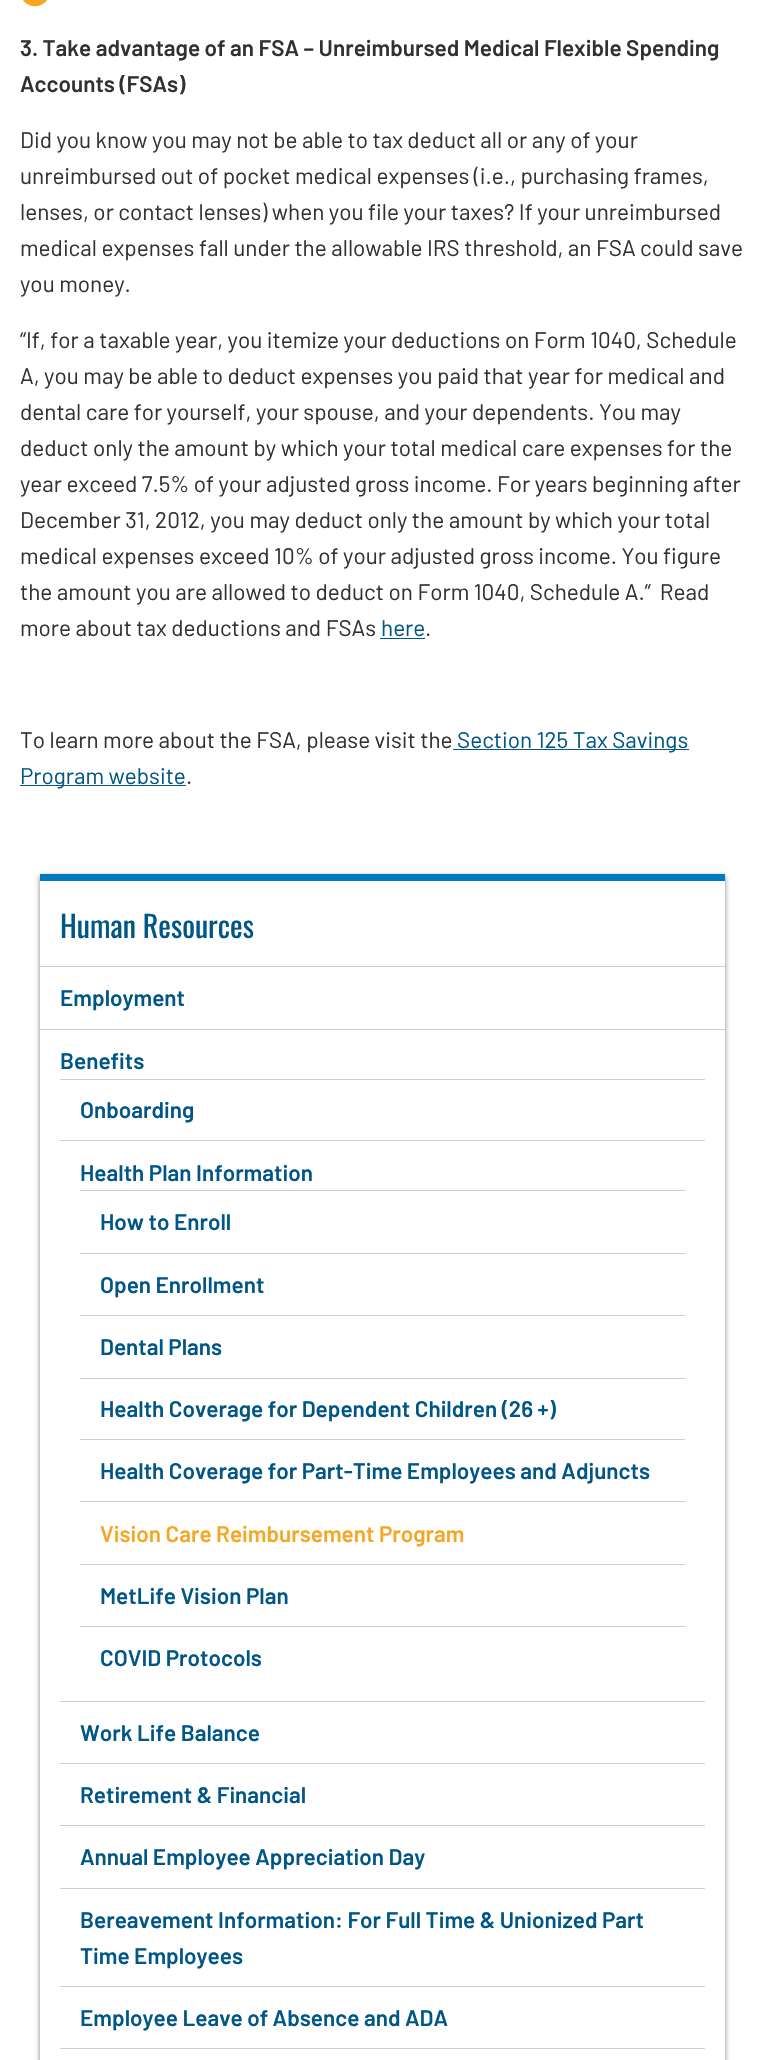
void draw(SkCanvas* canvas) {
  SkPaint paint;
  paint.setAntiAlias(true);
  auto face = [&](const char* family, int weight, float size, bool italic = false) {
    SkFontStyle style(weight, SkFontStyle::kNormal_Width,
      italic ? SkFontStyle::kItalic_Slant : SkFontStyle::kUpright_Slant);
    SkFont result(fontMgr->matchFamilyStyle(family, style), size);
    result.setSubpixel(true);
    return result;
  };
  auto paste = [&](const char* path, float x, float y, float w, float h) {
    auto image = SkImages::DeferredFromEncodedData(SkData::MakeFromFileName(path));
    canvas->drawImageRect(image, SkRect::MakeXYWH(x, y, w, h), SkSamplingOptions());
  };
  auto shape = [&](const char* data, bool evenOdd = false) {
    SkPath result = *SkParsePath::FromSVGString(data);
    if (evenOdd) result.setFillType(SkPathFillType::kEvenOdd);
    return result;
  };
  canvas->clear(0xffffffff);
  paste("img/1.png", 23, 0, 24, 7);
  {
    const struct { float x, y, w, h; SkColor color; } items[] = {
      {380, 638, 45, 1, 0xff005686},
      {453, 749, 236, 1, 0xff005686},
      {20, 785, 166, 1, 0xff005686},
    };
    for (auto [x, y, w, h, color] : items) {
      paint.setColor(color);
      canvas->drawRect(SkRect::MakeXYWH(x, y, w, h), paint);
    }
  }
  canvas->save();
  canvas->clipPath(shape("M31 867H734V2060H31ZM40 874H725V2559H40Z", true), true);
  paint.setColor(0x80000000);
  paint.setMaskFilter(SkMaskFilter::MakeBlur(kNormal_SkBlurStyle, 2.5f));
  canvas->drawRect(SkRect::MakeXYWH(40, 876, 685, 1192), paint);
  paint.setMaskFilter(nullptr);
  canvas->restore();
  {
    const struct { float x, y, w, h; SkColor color; } items[] = {
      {40, 874, 685, 7, 0xff0079bd},
      {40, 966, 685, 1, 0xffcbcfd2},
      {40, 1029, 685, 1, 0xffcbcfd2},
      {60, 1079, 645, 1, 0xffcbcfd2},
      {60, 1140, 645, 1, 0xffcbcfd2},
      {80, 1190, 605, 1, 0xffcbcfd2},
      {80, 1253, 605, 1, 0xffcbcfd2},
      {80, 1315, 605, 1, 0xffcbcfd2},
      {80, 1378, 605, 1, 0xffcbcfd2},
      {80, 1439, 605, 1, 0xffcbcfd2},
      {80, 1501, 605, 1, 0xffcbcfd2},
      {80, 1564, 605, 1, 0xffcbcfd2},
      {80, 1626, 605, 1, 0xffcbcfd2},
      {60, 1701, 645, 1, 0xffcbcfd2},
      {60, 1763, 645, 1, 0xffcbcfd2},
      {60, 1825, 645, 1, 0xffcbcfd2},
      {60, 1888, 645, 1, 0xffcbcfd2},
      {60, 1986, 645, 1, 0xffcbcfd2},
      {60, 2048, 645, 1, 0xffcbcfd2},
    };
    for (auto [x, y, w, h, color] : items) {
      paint.setColor(color);
      canvas->drawRect(SkRect::MakeXYWH(x, y, w, h), paint);
    }
  }
  auto f0 = face("Barlow", 600, 22.5f);
  paint.setColor(0xff32312f);
  canvas->drawString("3. Take advantage of an FSA – Unreimbursed Medical Flexible Spending", 20, 56, f0, paint);
  canvas->drawString("Accounts (FSAs)", 20, 92, f0, paint);
  auto f1 = face("Barlow", 400, 22.5f);
  {
    const struct { const char* s; float x, y; } items[] = {
      {"Did you know you may not be able to tax deduct all or any of your", 20, 148},
      {"unreimbursed out of pocket medical expenses (i.e., purchasing frames,", 20, 184},
      {"lenses, or contact lenses) when you file your taxes? If your unreimbursed", 20, 220},
      {"medical expenses fall under the allowable IRS threshold, an FSA could save", 20, 256},
      {"you money.", 20, 292},
      {"“If, for a taxable year, you itemize your deductions on Form 1040, Schedule", 20, 348},
      {"A, you may be able to deduct expenses you paid that year for medical and", 20, 384},
      {"dental care for yourself, your spouse, and your dependents. You may", 20, 420},
      {"deduct only the amount by which your total medical care expenses for the", 20, 456},
      {"year exceed 7.5% of your adjusted gross income. For years beginning after", 20, 492},
      {"December 31, 2012, you may deduct only the amount by which your total", 20, 528},
      {"medical expenses exceed 10% of your adjusted gross income. You figure", 20, 564},
      {"the amount you are allowed to deduct on Form 1040, Schedule A.”  Read", 20, 600},
      {"more about tax deductions and FSAs", 20, 636},
    };
    for (auto [s, x, y] : items) {
      canvas->drawString(s, x, y, f1, paint);
    }
  }
  paint.setColor(0xff005686);
  canvas->drawString("here", 381, 636, f1, paint);
  paint.setColor(0xff32312f);
  canvas->drawString(".", 425, 636, f1, paint);
  canvas->drawString("To learn more about the FSA, please visit the", 20, 748, f1, paint);
  paint.setColor(0xff005686);
  canvas->drawString("Section 125 Tax Savings", 457, 748, f1, paint);
  canvas->drawString("Program website", 20, 784, f1, paint);
  paint.setColor(0xff32312f);
  canvas->drawString(".", 186, 784, f1, paint);
  auto f2 = face("Oswald", 400, 30);
  paint.setColor(0xff005686);
  canvas->drawString("Human Resources", 60, 938, f2, paint);
  {
    const struct { const char* s; float x, y; } items[] = {
      {"Employment", 60, 1006},
      {"Benefits", 60, 1069},
      {"Onboarding", 80, 1118},
      {"Health Plan Information", 80, 1181},
      {"How to Enroll", 100, 1230},
      {"Open Enrollment", 100, 1293},
      {"Dental Plans", 100, 1355},
      {"Health Coverage for Dependent Children (26 +)", 100, 1417},
      {"Health Coverage for Part-Time Employees and Adjuncts", 100, 1479},
    };
    for (auto [s, x, y] : items) {
      canvas->drawString(s, x, y, f0, paint);
    }
  }
  paint.setColor(0xfff5a623);
  canvas->drawString("Vision Care Reimbursement Program", 100, 1542, f0, paint);
  paint.setColor(0xff005686);
  {
    const struct { const char* s; float x, y; } items[] = {
      {"MetLife Vision Plan", 100, 1604},
      {"COVID Protocols", 100, 1666},
      {"Work Life Balance", 80, 1741},
      {"Retirement & Financial", 80, 1803},
      {"Annual Employee Appreciation Day", 80, 1865},
      {"Bereavement Information: For Full Time & Unionized Part", 80, 1928},
      {"Time Employees", 80, 1964},
      {"Employee Leave of Absence and ADA", 80, 2026},
    };
    for (auto [s, x, y] : items) {
      canvas->drawString(s, x, y, f0, paint);
    }
  }
}
